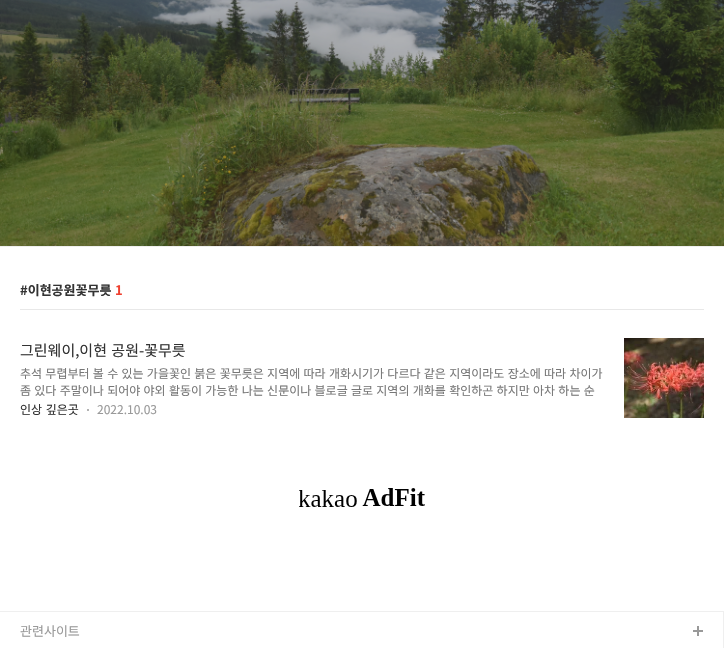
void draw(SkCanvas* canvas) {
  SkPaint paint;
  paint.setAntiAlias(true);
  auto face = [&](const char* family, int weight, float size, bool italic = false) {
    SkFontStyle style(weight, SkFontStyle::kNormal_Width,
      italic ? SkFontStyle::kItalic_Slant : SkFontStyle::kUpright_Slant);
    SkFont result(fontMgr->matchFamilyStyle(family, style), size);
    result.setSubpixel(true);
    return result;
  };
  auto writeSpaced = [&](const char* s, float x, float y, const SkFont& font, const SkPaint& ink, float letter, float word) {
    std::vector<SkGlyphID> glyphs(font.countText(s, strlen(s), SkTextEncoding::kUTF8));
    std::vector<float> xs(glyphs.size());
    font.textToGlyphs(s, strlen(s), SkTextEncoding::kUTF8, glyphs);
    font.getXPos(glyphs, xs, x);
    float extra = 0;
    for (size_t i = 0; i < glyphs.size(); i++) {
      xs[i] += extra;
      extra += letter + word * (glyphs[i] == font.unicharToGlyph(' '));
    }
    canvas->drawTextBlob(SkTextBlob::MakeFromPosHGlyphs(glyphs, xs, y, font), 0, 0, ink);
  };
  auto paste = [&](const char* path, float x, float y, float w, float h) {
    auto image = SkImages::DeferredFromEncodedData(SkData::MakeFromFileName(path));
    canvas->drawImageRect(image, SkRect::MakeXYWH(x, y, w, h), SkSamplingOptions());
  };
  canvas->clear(0xffffffff);
  paint.setColor(0xffefefef);
  canvas->drawRect(SkRect::MakeXYWH(0, 246, 724, 1), paint);
  paste("img/1.png", 0, 0, 724, 246);
  paint.setColor(0xffe8e8e8);
  canvas->drawRect(SkRect::MakeXYWH(20, 309, 684, 1), paint);
  paint.setColor(0xff999999);
  canvas->drawCircle(88, 410, 1, paint);
  paste("img/2.png", 624, 338, 80, 80);
  paste("img/3.png", 299, 488, 126, 19);
  paint.setColor(0xffefefef);
  canvas->drawRect(SkRect::MakeXYWH(0, 611, 724, 1), paint);
  paste("img/4.png", 693, 626, 10, 10);
  canvas->drawRect(SkRect::MakeXYWH(723, 611, 1, 37), paint);
  auto f0 = face("Noto Sans KR", 700, 13);
  paint.setColor(0xff333333);
  canvas->drawString("#이현공원꽃무릇", 20, 295, f0, paint);
  paint.setColor(0xffef402f);
  canvas->drawString("1", 115, 295, f0, paint);
  auto f1 = face("Noto Sans KR", 400, 15);
  paint.setColor(0xff333333);
  writeSpaced("그린웨이,이현 공원-꽃무릇", 20, 356, f1, paint, 0, 1);
  auto f2 = face("Noto Sans KR", 400, 12);
  paint.setColor(0xff777777);
  writeSpaced("추석 무렵부터 볼 수 있는 가을꽃인 붉은 꽃무릇은 지역에 따라 개화시기가 다르다 같은 지역이라도 장소에 따라 차이가", 20, 378, f2, paint, 0, 0.6f);
  writeSpaced("좀 있다 주말이나 되어야 야외 활동이 가능한 나는 신문이나 블로글 글로 지역의 개화를 확인하곤 하지만 아차 하는 순", 20, 395, f2, paint, 0, 0.6f);
  paint.setColor(0xff333333);
  writeSpaced("인상 깊은곳", 20, 414, f2, paint, 0, 1);
  paint.setColor(0xff999999);
  canvas->drawString("2022.10.03", 97, 414, f2, paint);
  auto f3 = face("Noto Sans KR", 400, 13);
  canvas->drawString("관련사이트", 20, 636, f3, paint);
}
